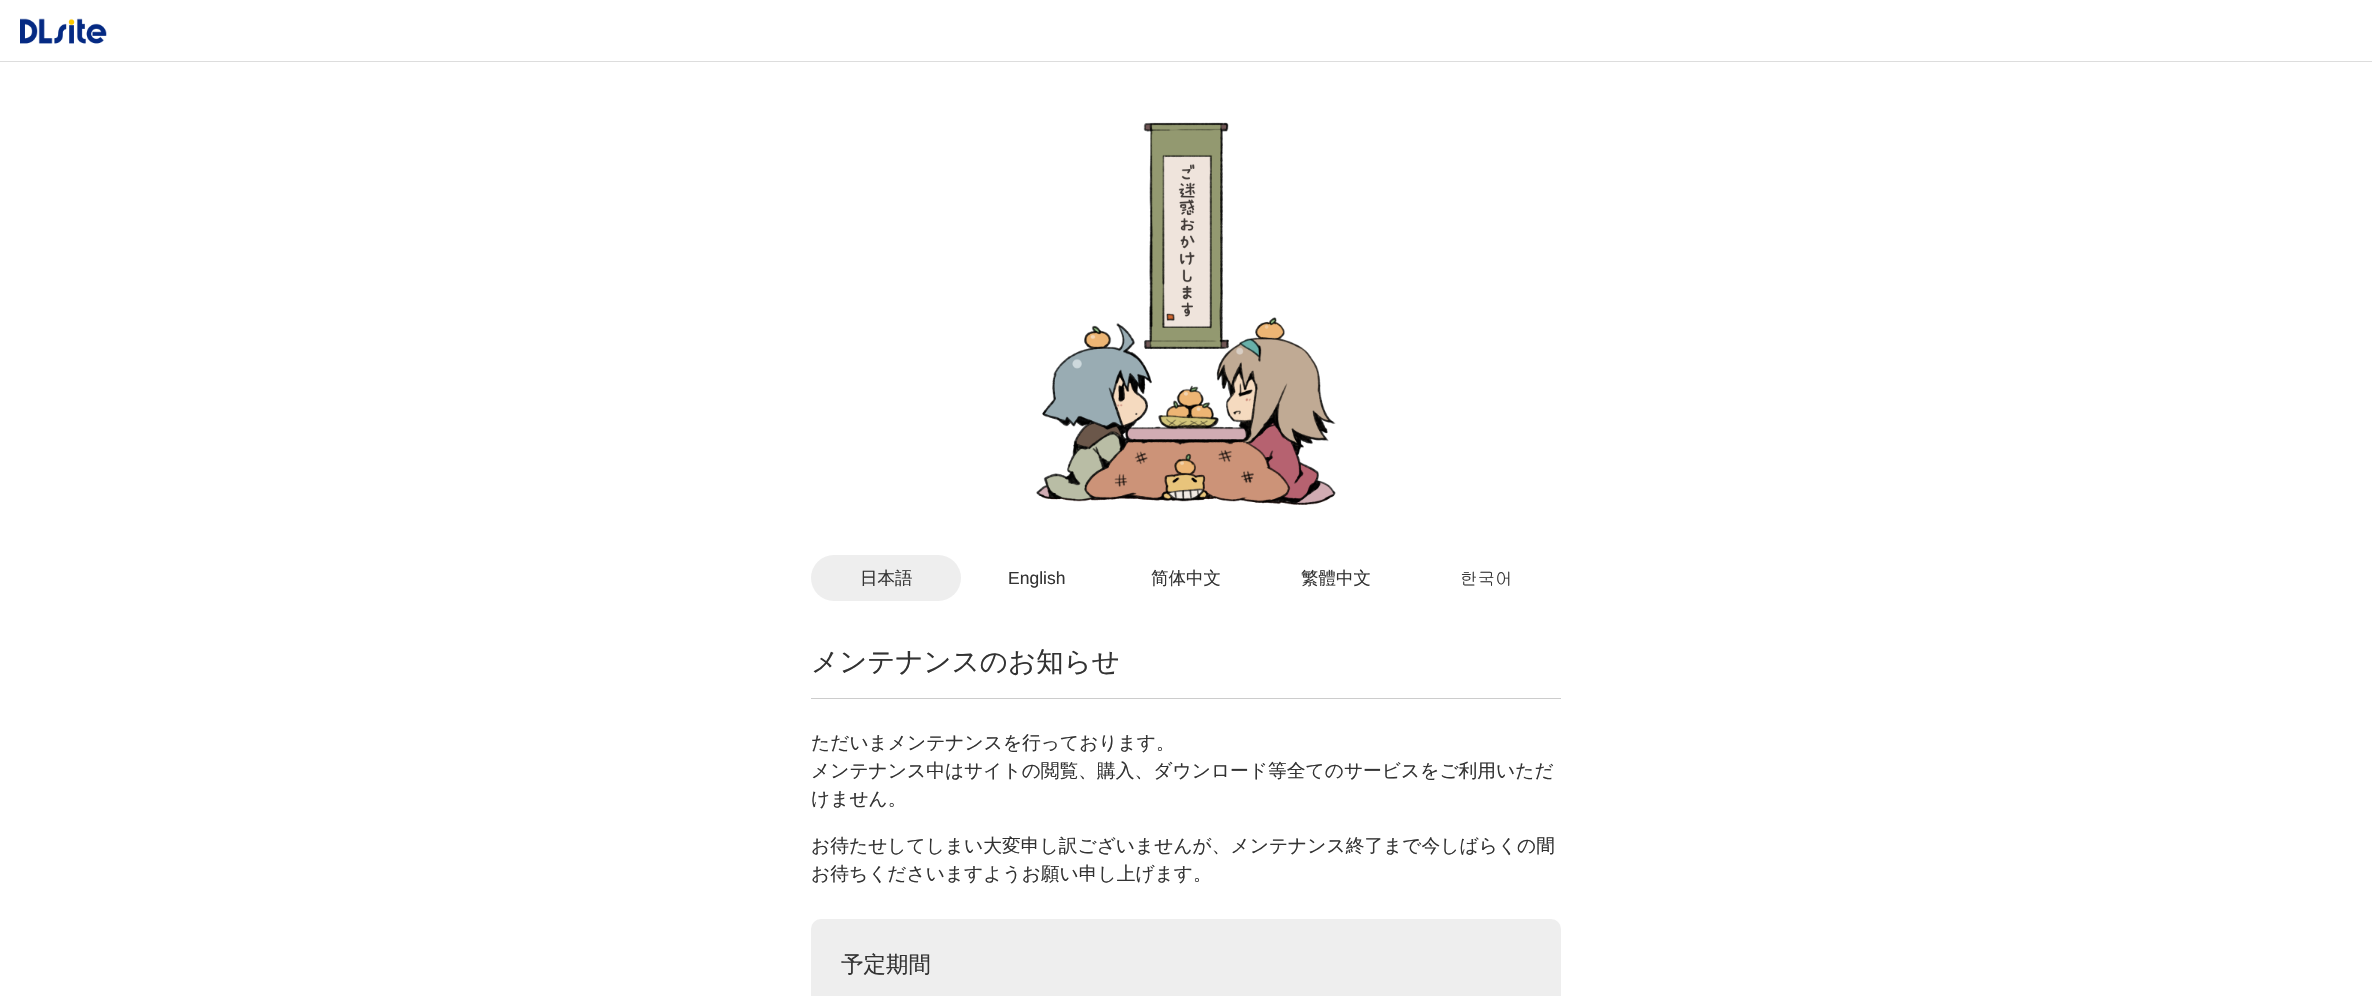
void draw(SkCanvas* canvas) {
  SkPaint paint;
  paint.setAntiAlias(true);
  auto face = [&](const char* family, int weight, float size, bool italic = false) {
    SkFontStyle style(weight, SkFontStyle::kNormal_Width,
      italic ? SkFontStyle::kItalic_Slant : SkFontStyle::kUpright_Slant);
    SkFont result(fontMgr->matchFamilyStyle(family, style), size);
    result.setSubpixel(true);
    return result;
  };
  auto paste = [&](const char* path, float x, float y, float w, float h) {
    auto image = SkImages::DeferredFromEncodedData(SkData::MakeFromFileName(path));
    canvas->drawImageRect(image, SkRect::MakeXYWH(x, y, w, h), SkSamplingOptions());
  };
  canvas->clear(0xffffffff);
  paint.setColor(0xffdddddd);
  canvas->drawRect(SkRect::MakeXYWH(0, 61, 2372, 1), paint);
  paste("img/1.png", 20, 18, 87, 26);
  paste("img/2.png", 1036, 122, 300, 383);
  paint.setColor(0xffeeeeee);
  canvas->drawRoundRect(SkRect::MakeXYWH(811, 555, 150, 46), 23, 23, paint);
  paint.setColor(0xffcccccc);
  canvas->drawRect(SkRect::MakeXYWH(811, 698, 750, 1), paint);
  paint.setColor(0xffeeeeee);
  canvas->drawRoundRect(SkRect::MakeXYWH(811, 919, 750, 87), 10, 10, paint);
  auto f0 = face("WenQuanYi Zen Hei", 500, 17.5f);
  paint.setColor(0xff333333);
  canvas->drawString("日本語", 860, 584, f0, paint);
  auto f1 = face("Liberation Sans", 400, 17.5f);
  canvas->drawString("English", 1008, 584, f1, paint);
  canvas->drawString("简体中文", 1151, 584, f0, paint);
  canvas->drawString("繁體中文", 1301, 584, f0, paint);
  auto f2 = face("Gulim", 400, 17.5f);
  canvas->drawString("한국어", 1460, 585, f2, paint);
  auto f3 = face("WenQuanYi Zen Hei", 500, 27.5f);
  canvas->drawString("メンテナンスのお知らせ", 811, 671, f3, paint);
  auto f4 = face("WenQuanYi Zen Hei", 500, 18.75f);
  {
    const struct { const char* s; float x, y; } items[] = {
      {"ただいまメンテナンスを行っております。", 811, 749},
      {"メンテナンス中はサイトの閲覧、購入、ダウンロード等全てのサービスをご利用いただ", 811, 777},
      {"けません。", 811, 805},
      {"お待たせしてしまい大変申し訳ございませんが、メンテナンス終了まで今しばらくの間", 811, 852},
      {"お待ちくださいますようお願い申し上げます。", 811, 880},
    };
    for (auto [s, x, y] : items) {
      canvas->drawString(s, x, y, f4, paint);
    }
  }
  auto f5 = face("WenQuanYi Zen Hei", 500, 22.5f);
  canvas->drawString("予定期間", 841, 972, f5, paint);
}
